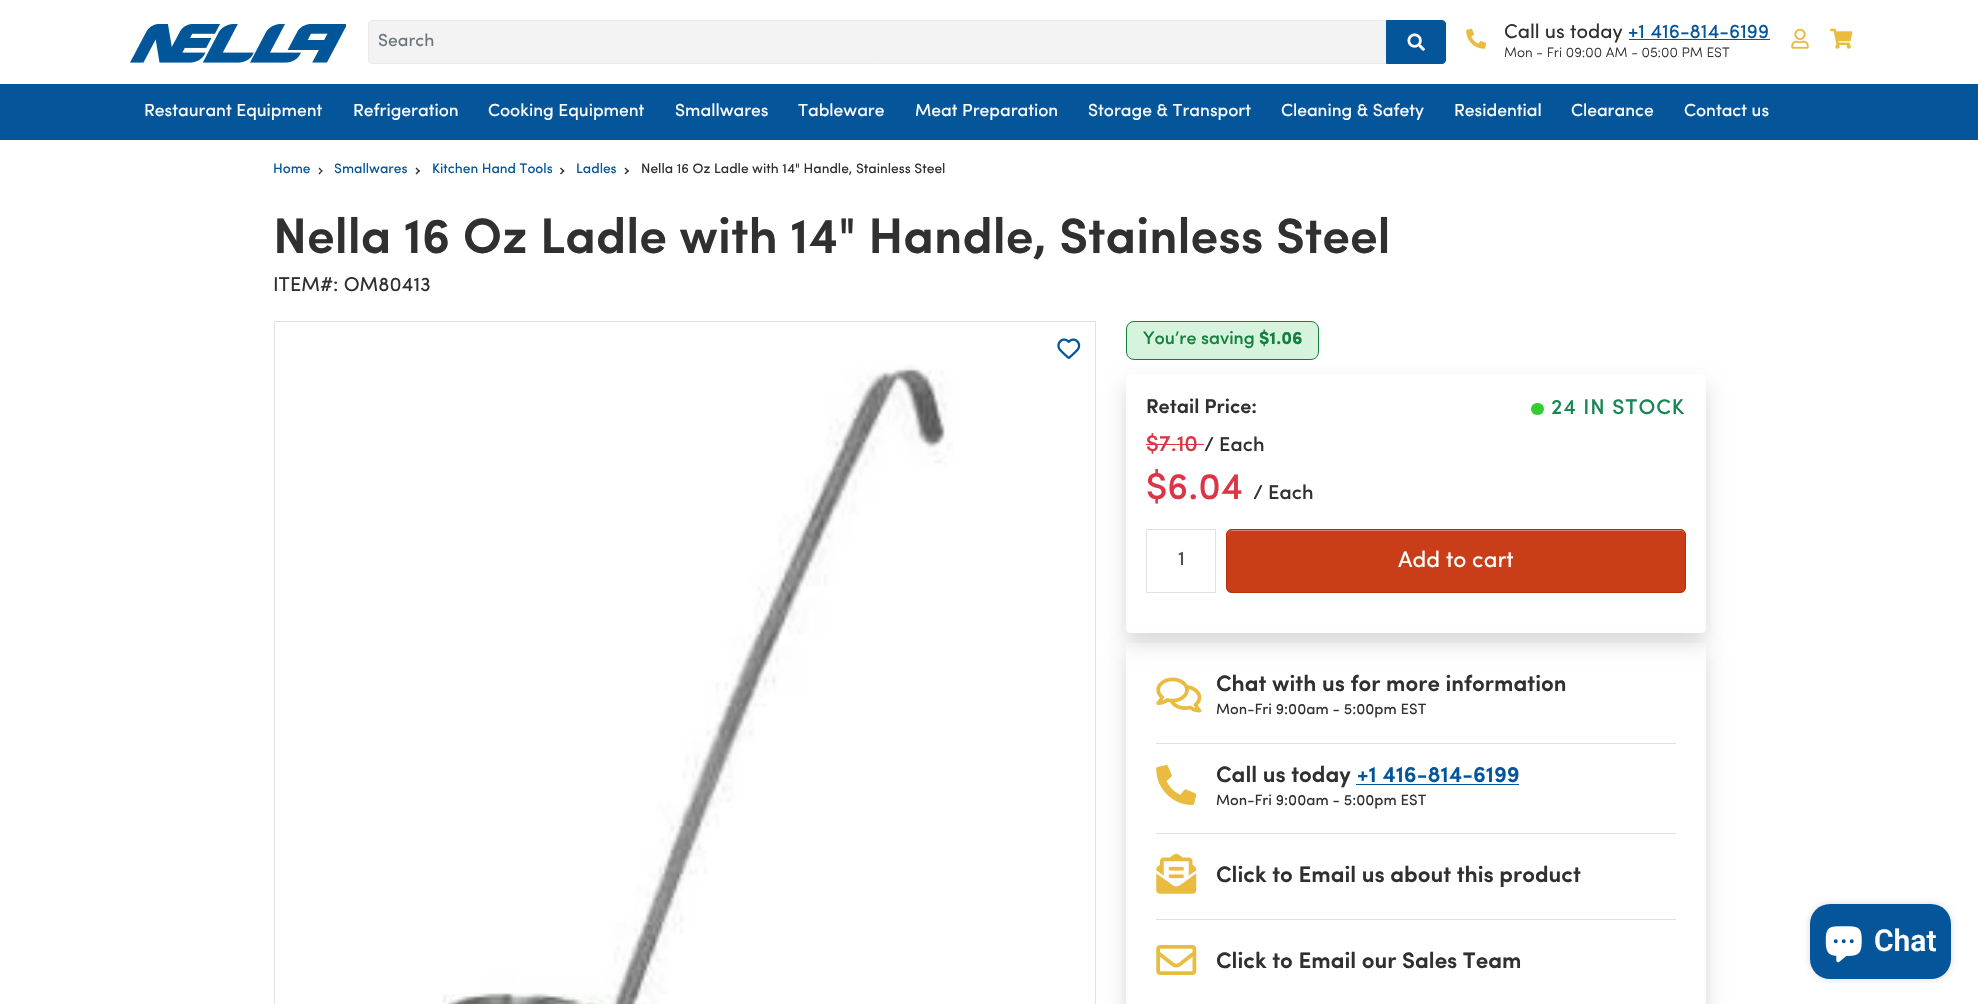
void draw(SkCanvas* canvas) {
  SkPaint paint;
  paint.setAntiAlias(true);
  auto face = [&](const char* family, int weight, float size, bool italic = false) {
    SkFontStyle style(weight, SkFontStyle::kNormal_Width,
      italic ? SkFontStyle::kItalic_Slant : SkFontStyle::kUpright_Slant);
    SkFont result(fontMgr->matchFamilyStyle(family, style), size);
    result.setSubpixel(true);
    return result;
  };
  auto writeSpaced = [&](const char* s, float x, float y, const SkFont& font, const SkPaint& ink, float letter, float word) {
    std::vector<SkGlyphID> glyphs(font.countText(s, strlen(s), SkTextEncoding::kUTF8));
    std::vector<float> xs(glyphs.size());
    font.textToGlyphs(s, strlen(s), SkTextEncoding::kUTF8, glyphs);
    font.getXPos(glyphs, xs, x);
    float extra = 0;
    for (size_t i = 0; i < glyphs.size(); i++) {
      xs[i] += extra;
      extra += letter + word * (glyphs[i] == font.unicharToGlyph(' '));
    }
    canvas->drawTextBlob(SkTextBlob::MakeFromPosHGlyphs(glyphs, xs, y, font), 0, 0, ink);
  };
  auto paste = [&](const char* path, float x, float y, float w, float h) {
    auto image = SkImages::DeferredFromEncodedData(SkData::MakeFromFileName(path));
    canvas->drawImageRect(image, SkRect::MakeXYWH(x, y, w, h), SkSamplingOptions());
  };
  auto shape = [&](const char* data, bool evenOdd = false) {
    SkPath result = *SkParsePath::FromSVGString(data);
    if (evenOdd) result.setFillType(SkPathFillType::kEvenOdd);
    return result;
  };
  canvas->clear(0xffffffff);
  paste("img/1.png", 130, 24, 216, 39);
  paint.setColor(0xfff3f3f3);
  canvas->drawPath(shape("M371.5 21H1386V63H371.5C370 63 369 62 369 60.5V23.5C369 22 370 21 371.5 21Z"), paint);
  paint.setStroke(true);
  paint.setStrokeWidth(1);
  paint.setColor(0xffeaeaea);
  canvas->drawPath(shape("M372 20.5H1387.5V63.5H372C370 63.5 368.5 62 368.5 60V24C368.5 22 370 20.5 372 20.5Z"), paint);
  paint.setStroke(false);
  paint.setColor(0xff05559a);
  canvas->drawPath(shape("M1386.5 20.5H1442C1444 20.5 1445.5 22 1445.5 24V60C1445.5 62 1444 63.5 1442 63.5H1386.5Z"), paint);
  paint.setStroke(true);
  canvas->drawPath(shape("M1386.5 20.5H1442C1444 20.5 1445.5 22 1445.5 24V60C1445.5 62 1444 63.5 1442 63.5H1386.5Z"), paint);
  paste("img/2.png", 1407, 33, 18, 18);
  paste("img/3.png", 1466, 28, 21, 21);
  paint.setStroke(false);
  canvas->drawRect(SkRect::MakeXYWH(1629, 39, 141, 1), paint);
  paste("img/4.png", 1791, 28, 18, 21);
  paste("img/5.png", 1830, 28, 23, 21);
  canvas->drawRect(SkRect::MakeXYWH(0, 84, 1978, 56), paint);
  paint.setColor(0xff303030);
  canvas->drawPath(shape("M319.5 167.5L322.5 171L322 172L318.5 168.5Z"), paint);
  canvas->drawPath(shape("M322 170L322.5 171L319.5 174.5L318.5 173.5Z"), paint);
  canvas->drawPath(shape("M416.5 167.5L420 171L419 172L415.5 168.5Z"), paint);
  canvas->drawPath(shape("M419 170L420 171L416.5 174.5L415.5 173.5Z"), paint);
  canvas->drawPath(shape("M561 167.5L564.5 171L563.5 172L560 168.5Z"), paint);
  canvas->drawPath(shape("M563.5 170L564.5 171L561 174.5L560 173.5Z"), paint);
  canvas->drawPath(shape("M625.5 167.5L629 171L628 172L624.5 168.5Z"), paint);
  canvas->drawPath(shape("M628 170L629 171L625.5 174.5L624.5 173.5Z"), paint);
  paint.setStroke(true);
  paint.setColor(0xffdee2e6);
  canvas->drawRect(SkRect::MakeXYWH(274.5f, 321.5f, 821, 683), paint);
  paste("img/6.png", 1057, 338, 24, 21);
  paste("img/7.png", 442, 364, 512, 640);
  paint.setStroke(false);
  paint.setColor(0xffd6f4dd);
  canvas->drawRoundRect(SkRect::MakeXYWH(1126.5f, 321.5f, 192, 38), 7.5f, 7.5f, paint);
  paint.setStroke(true);
  paint.setColor(0xff15803d);
  canvas->drawRoundRect(SkRect::MakeXYWH(1126.5f, 321.5f, 192, 38), 7.5f, 7.5f, paint);
  canvas->save();
  canvas->clipPath(shape("M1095 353H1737V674H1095ZM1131 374H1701C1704 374 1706 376 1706 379V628C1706 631 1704 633 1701 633H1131C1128 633 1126 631 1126 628V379C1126 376 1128 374 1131 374Z", true), true);
  paint.setStroke(false);
  paint.setColor(0x26000000);
  paint.setMaskFilter(SkMaskFilter::MakeBlur(kNormal_SkBlurStyle, 10));
  canvas->drawRoundRect(SkRect::MakeXYWH(1126, 384, 580, 259), 5, 5, paint);
  paint.setMaskFilter(nullptr);
  canvas->restore();
  paint.setColor(0xffdc3545);
  canvas->drawRect(SkRect::MakeXYWH(1146, 444, 58, 1), paint);
  paint.setColor(0xff32cd32);
  canvas->drawRoundRect(SkRect::MakeXYWH(1531, 403, 13, 12), 6, 6, paint);
  paint.setStroke(true);
  paint.setColor(0xffdee2e6);
  canvas->drawRect(SkRect::MakeXYWH(1146.5f, 529.5f, 69, 63), paint);
  paint.setStroke(false);
  paint.setColor(0xffc93e19);
  canvas->drawRoundRect(SkRect::MakeXYWH(1226, 529, 460, 64), 6, 6, paint);
  paint.setColor(0xffcf866c);
  canvas->drawPath(shape("M1232 531H1680C1683 531 1685 533 1685 536C1685 533 1683 530 1680 530H1233C1230 530 1228 533 1228 536C1228 533 1230 531 1232 531Z"), paint);
  paint.setStroke(true);
  paint.setColor(0xffbc3009);
  canvas->drawRoundRect(SkRect::MakeXYWH(1226.5f, 529.5f, 459, 63), 5.5f, 5.5f, paint);
  canvas->save();
  canvas->clipPath(shape("M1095 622H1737V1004H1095ZM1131 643H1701C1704 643 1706 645 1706 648V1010C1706 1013 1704 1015 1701 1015H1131C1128 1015 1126 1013 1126 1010V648C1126 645 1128 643 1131 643Z", true), true);
  paint.setStroke(false);
  paint.setColor(0x26000000);
  paint.setMaskFilter(SkMaskFilter::MakeBlur(kNormal_SkBlurStyle, 10));
  canvas->drawRoundRect(SkRect::MakeXYWH(1126, 653, 580, 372), 5, 5, paint);
  paint.setMaskFilter(nullptr);
  canvas->restore();
  paint.setColor(0xffdee2e6);
  canvas->drawRect(SkRect::MakeXYWH(1156, 743, 520, 1), paint);
  paste("img/8.png", 1156, 677, 46, 36);
  canvas->drawRect(SkRect::MakeXYWH(1156, 833, 520, 1), paint);
  paste("img/9.png", 1156, 765, 41, 40);
  paint.setColor(0xff05559a);
  canvas->drawRect(SkRect::MakeXYWH(1356, 784, 163, 1), paint);
  paint.setColor(0xffdee2e6);
  canvas->drawRect(SkRect::MakeXYWH(1156, 919, 520, 1), paint);
  paste("img/10.png", 1156, 853, 41, 41);
  paste("img/11.png", 1156, 945, 41, 30);
  paint.setColor(0x26000000);
  paint.setMaskFilter(SkMaskFilter::MakeBlur(kNormal_SkBlurStyle, 3));
  canvas->drawRoundRect(SkRect::MakeXYWH(1810, 904, 141, 75), 20, 20, paint);
  paint.setMaskFilter(nullptr);
  paint.setColor(0xff05559a);
  canvas->drawRoundRect(SkRect::MakeXYWH(1810, 904, 141, 75), 20, 20, paint);
  paste("img/12.png", 1825, 926, 37, 37);
  auto f0 = face("Sofia", 400, 17.5f);
  paint.setColor(0xff6c757d);
  canvas->drawString("Search", 378, 46, f0, paint);
  auto f1 = face("Sofia", 400, 20);
  paint.setColor(0xff303030);
  canvas->drawString("Call us today", 1504, 38, f1, paint);
  paint.setColor(0xff05559a);
  canvas->drawString("+1 416-814-6199", 1628, 38, f1, paint);
  auto f2 = face("Sofia", 300, 13.75f);
  paint.setColor(0xff303030);
  canvas->drawString("Mon - Fri 09:00 AM - 05:00 PM EST", 1504, 57, f2, paint);
  paint.setColor(0xffffffff);
  {
    const struct { const char* s; float x, y; } items[] = {
      {"Restaurant Equipment", 144, 116},
      {"Refrigeration", 353, 116},
      {"Cooking Equipment", 488, 116},
      {"Smallwares", 675, 116},
      {"Tableware", 798, 116},
      {"Meat Preparation", 915, 116},
      {"Storage & Transport", 1088, 116},
      {"Cleaning & Safety", 1281, 116},
      {"Residential", 1454, 116},
      {"Clearance", 1571, 116},
      {"Contact us", 1684, 116},
    };
    for (auto [s, x, y] : items) {
      canvas->drawString(s, x, y, f0, paint);
    }
  }
  auto f3 = face("Sofia", 400, 13.75f);
  paint.setColor(0xff05559a);
  {
    const struct { const char* s; float x, y; } items[] = {
      {"Home", 273, 173},
      {"Smallwares", 334, 173},
      {"Kitchen Hand Tools", 432, 173},
      {"Ladles", 576, 173},
    };
    for (auto [s, x, y] : items) {
      canvas->drawString(s, x, y, f3, paint);
    }
  }
  paint.setColor(0xff303030);
  canvas->drawString("Nella 16 Oz Ladle with 14\" Handle, Stainless Steel", 641, 173, f3, paint);
  auto f4 = face("Sofia", 600, 50);
  canvas->drawString("Nella 16 Oz Ladle with 14\" Handle, Stainless Steel", 273, 253, f4, paint);
  canvas->drawString("ITEM#: OM80413", 273, 291, f1, paint);
  auto f5 = face("Sofia", 500, 18);
  paint.setColor(0xff15803d);
  canvas->drawString("You’re saving", 1143, 344, f5, paint);
  auto f6 = face("Sofia", 700, 18);
  canvas->drawString("$1.06", 1259, 344, f6, paint);
  auto f7 = face("Sofia", 600, 20);
  paint.setColor(0xff303030);
  canvas->drawString("Retail Price:", 1146, 413, f7, paint);
  auto f8 = face("Sofia", 500, 22.5f);
  paint.setColor(0xffdc3545);
  canvas->drawString("$7.10", 1146, 451, f8, paint);
  auto f9 = face("Sofia", 500, 20);
  paint.setColor(0xff303030);
  canvas->drawString("/ Each", 1204, 451, f9, paint);
  auto f10 = face("Sofia", 500, 37.5f);
  paint.setColor(0xffdc3545);
  canvas->drawString("$6.04", 1146, 499, f10, paint);
  paint.setColor(0xff303030);
  canvas->drawString("/ Each", 1253, 499, f9, paint);
  auto f11 = face("Sofia", 500, 21.25f);
  paint.setColor(0xff198754);
  writeSpaced("24 IN STOCK", 1551, 414, f11, paint, 1, 0);
  paint.setColor(0xff4f4f4f);
  canvas->drawString("1", 1178, 565, f9, paint);
  auto f12 = face("Sofia", 400, 22.5f);
  paint.setColor(0xffffffff);
  canvas->drawString("Add to cart", 1398, 567, f12, paint);
  auto f13 = face("Sofia", 600, 22.5f);
  paint.setColor(0xff303030);
  canvas->drawString("Chat with us for more information", 1216, 691, f13, paint);
  auto f14 = face("Sofia", 400, 15);
  canvas->drawString("Mon-Fri 9:00am - 5:00pm EST", 1216, 714, f14, paint);
  canvas->drawString("Call us today", 1216, 782, f13, paint);
  paint.setColor(0xff05559a);
  canvas->drawString("+1 416-814-6199", 1357, 782, f13, paint);
  paint.setColor(0xff303030);
  canvas->drawString("Mon-Fri 9:00am - 5:00pm EST", 1216, 805, f14, paint);
  canvas->drawString("Click to Email us about this product", 1216, 882, f13, paint);
  canvas->drawString("Click to Email our Sales Team", 1216, 968, f13, paint);
  auto f15 = face("Roboto", 600, 30);
  paint.setColor(0xffffffff);
  canvas->drawString("Chat", 1874, 951, f15, paint);
}
